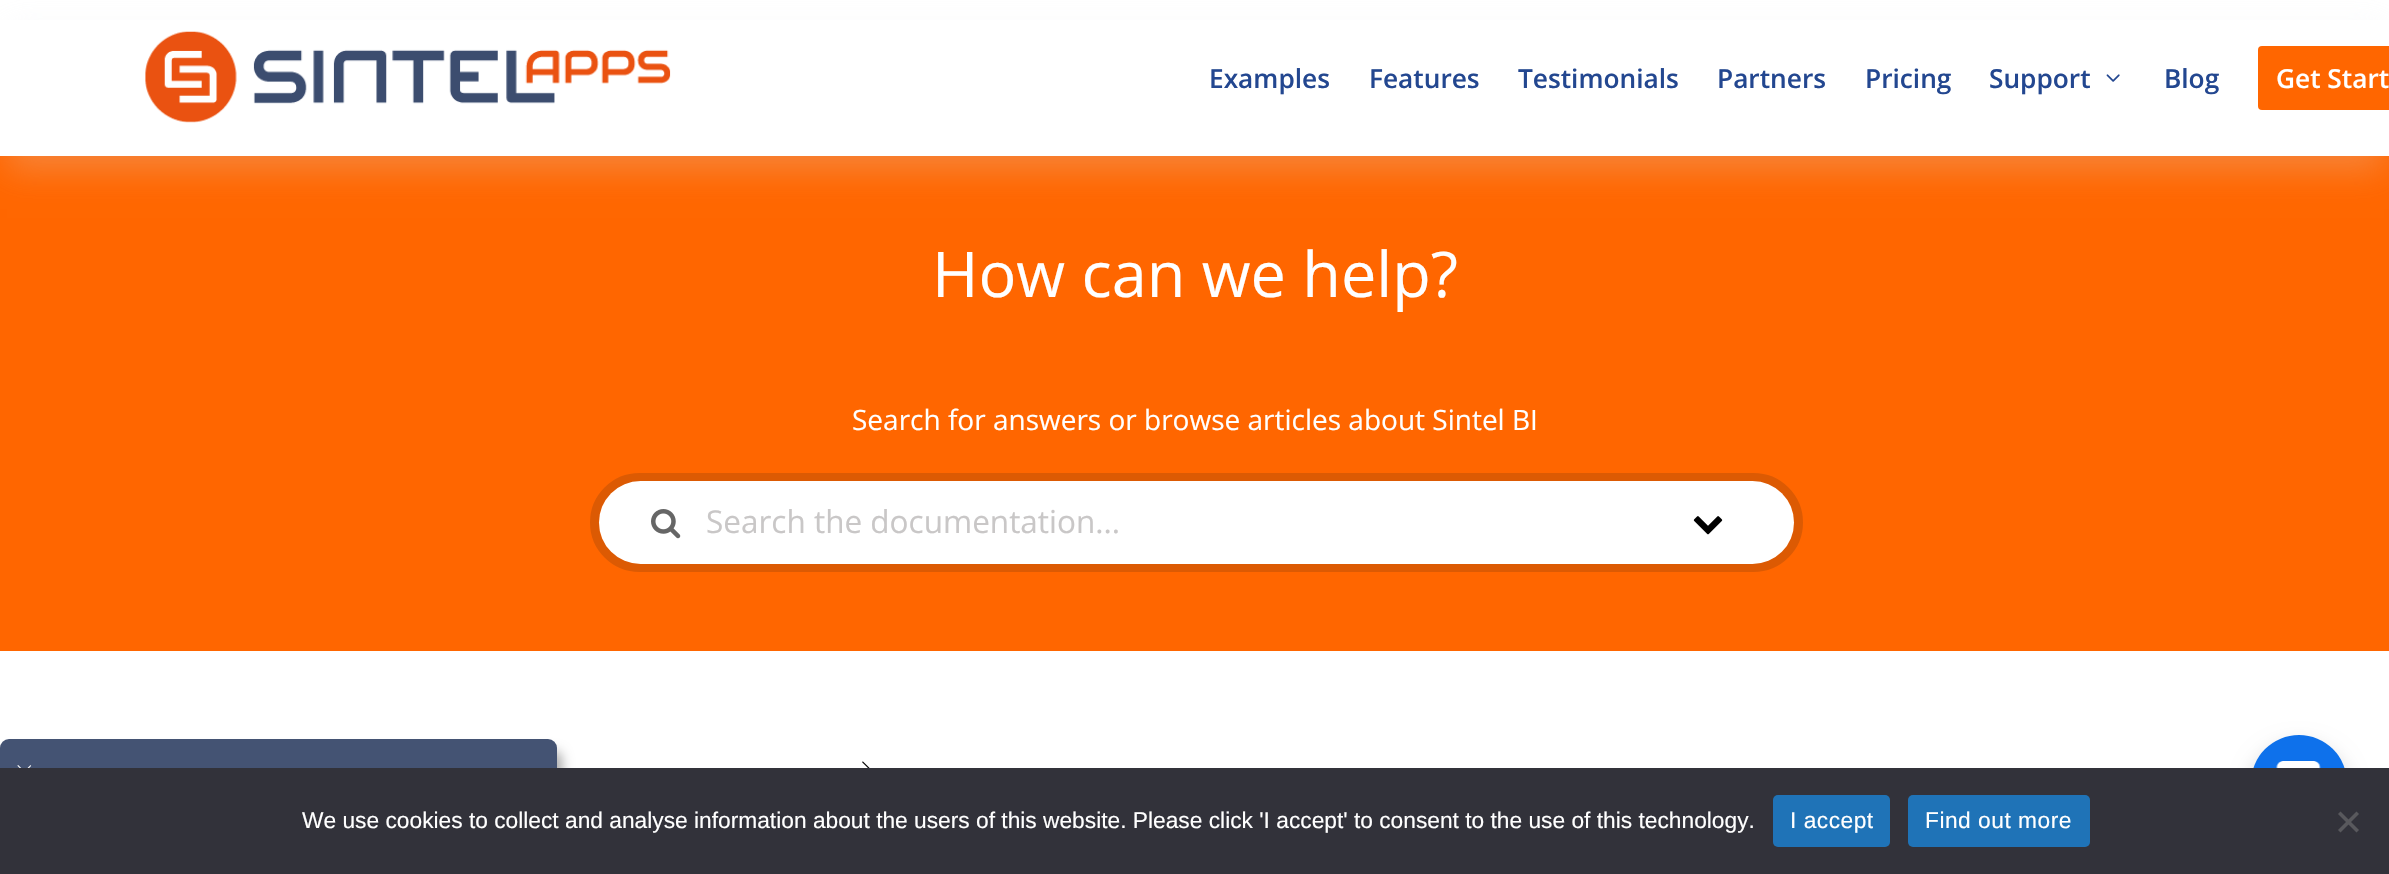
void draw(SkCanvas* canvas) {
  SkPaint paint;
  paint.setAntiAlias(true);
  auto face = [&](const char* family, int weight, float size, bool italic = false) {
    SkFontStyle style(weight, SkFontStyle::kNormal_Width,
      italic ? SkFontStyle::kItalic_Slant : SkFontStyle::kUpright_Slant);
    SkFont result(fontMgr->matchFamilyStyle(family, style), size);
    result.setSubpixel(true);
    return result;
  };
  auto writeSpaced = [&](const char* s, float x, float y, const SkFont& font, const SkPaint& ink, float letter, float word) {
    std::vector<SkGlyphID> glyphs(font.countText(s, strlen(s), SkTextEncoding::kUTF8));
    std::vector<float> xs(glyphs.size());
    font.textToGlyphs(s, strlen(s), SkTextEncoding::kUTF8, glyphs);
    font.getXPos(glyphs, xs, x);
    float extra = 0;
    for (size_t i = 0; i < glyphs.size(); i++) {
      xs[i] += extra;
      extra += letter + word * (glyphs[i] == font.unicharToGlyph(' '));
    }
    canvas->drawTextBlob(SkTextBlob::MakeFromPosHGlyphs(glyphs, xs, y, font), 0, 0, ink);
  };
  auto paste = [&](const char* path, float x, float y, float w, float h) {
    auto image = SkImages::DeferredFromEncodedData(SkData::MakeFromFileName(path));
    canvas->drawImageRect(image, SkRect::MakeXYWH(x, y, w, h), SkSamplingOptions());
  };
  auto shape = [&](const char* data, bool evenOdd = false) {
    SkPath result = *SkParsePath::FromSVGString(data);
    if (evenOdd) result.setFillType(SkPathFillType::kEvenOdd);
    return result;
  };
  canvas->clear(0xffffffff);
  paint.setColor(0xffff6600);
  canvas->drawRect(SkRect::MakeXYWH(0, 156, 2389, 495), paint);
  paint.setColor(0x3ddce2ec);
  paint.setMaskFilter(SkMaskFilter::MakeBlur(kNormal_SkBlurStyle, 16));
  canvas->drawRect(SkRect::MakeXYWH(7, 28, 2377, 142), paint);
  paint.setMaskFilter(nullptr);
  paint.setColor(0xffffffff);
  canvas->drawRect(SkRect::MakeXYWH(0, 20, 2389, 136), paint);
  paste("img/1.png", 145, 31, 526, 92);
  paste("img/2.png", 2106, 74, 14, 8);
  paint.setColor(0xffff6600);
  canvas->drawRoundRect(SkRect::MakeXYWH(2258, 46, 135, 64), 4, 4, paint);
  paint.setStroke(true);
  paint.setStrokeWidth(9);
  paint.setColor(0xffdc5a03);
  canvas->drawRoundRect(SkRect::MakeXYWH(594.5f, 477.5f, 1204, 90), 45, 45, paint);
  paint.setStroke(false);
  paint.setColor(0xffffffff);
  canvas->drawRoundRect(SkRect::MakeXYWH(599, 481, 1195, 83), 41.5f, 41.5f, paint);
  paste("img/3.png", 651, 509, 30, 30);
  paste("img/4.png", 1693, 516, 30, 19);
  paint.setColor(0x57000000);
  paint.setMaskFilter(SkMaskFilter::MakeBlur(kNormal_SkBlurStyle, 6));
  canvas->drawRoundRect(SkRect::MakeXYWH(5, 751, 557, 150), 9, 9, paint);
  paint.setMaskFilter(nullptr);
  paint.setColor(0xff445373);
  canvas->drawRoundRect(SkRect::MakeXYWH(0, 739, 557, 66), 9, 9, paint);
  paste("img/5.png", 17, 765, 15, 3);
  paste("img/6.png", 862, 761, 8, 7);
  paint.setColor(0x33000000);
  paint.setMaskFilter(SkMaskFilter::MakeBlur(kNormal_SkBlurStyle, 10.5f));
  canvas->drawRoundRect(SkRect::MakeXYWH(2251, 746, 96, 96), 48, 48, paint);
  paint.setMaskFilter(nullptr);
  paint.setColor(0xff0e71eb);
  canvas->drawCircle(2299, 783, 48, paint);
  paint.setColor(0xff32323a);
  canvas->drawRect(SkRect::MakeXYWH(0, 768, 2389, 106), paint);
  paint.setColor(0xff1f73b7);
  canvas->drawRoundRect(SkRect::MakeXYWH(1773, 795, 117, 52), 5, 5, paint);
  canvas->drawRoundRect(SkRect::MakeXYWH(1908, 795, 182, 52), 5, 5, paint);
  paint.setColor(0xff59595d);
  canvas->drawPath(shape("M2356.5 811.5L2359 814L2340.5 832.5L2338 830Z"), paint);
  canvas->drawPath(shape("M2338 814L2340.5 811.5L2359 830L2356.5 832.5Z"), paint);
  paste("img/7.png", 2276, 761, 45, 7);
  auto f0 = face("Open Sans", 600, 26.25f);
  paint.setColor(0xff234790);
  {
    const struct { const char* s; float x, y; } items[] = {
      {"Examples", 1209, 88},
      {"Features", 1369, 88},
      {"Testimonials", 1518, 88},
      {"Partners", 1717, 88},
      {"Pricing", 1865, 88},
      {"Support", 1989, 88},
      {"Blog", 2164, 88},
    };
    for (auto [s, x, y] : items) {
      canvas->drawString(s, x, y, f0, paint);
    }
  }
  paint.setColor(0xffffffff);
  canvas->drawString("Get Start", 2276, 88, f0, paint);
  auto f1 = face("Open Sans", 400, 63);
  canvas->drawString("How can we help?", 932, 297, f1, paint);
  auto f2 = face("Open Sans", 400, 28);
  canvas->drawString("Search for answers or browse articles about Sintel BI", 852, 430, f2, paint);
  auto f3 = face("Open Sans", 400, 31.5f);
  paint.setColor(0xffc9c7c7);
  canvas->drawString("Search the documentation...", 706, 533, f3, paint);
  auto f4 = face("Liberation Sans", 400, 22.75f);
  paint.setColor(0xffffffff);
  canvas->drawString("We use cookies to collect and analyse information about the users of this website. Please click 'I accept' to consent to the use of this technology.", 302, 828, f4, paint);
  writeSpaced("I accept", 1790, 828, f4, paint, 0.5f, 0);
  writeSpaced("Find out more", 1925, 828, f4, paint, 0.5f, 0);
}
